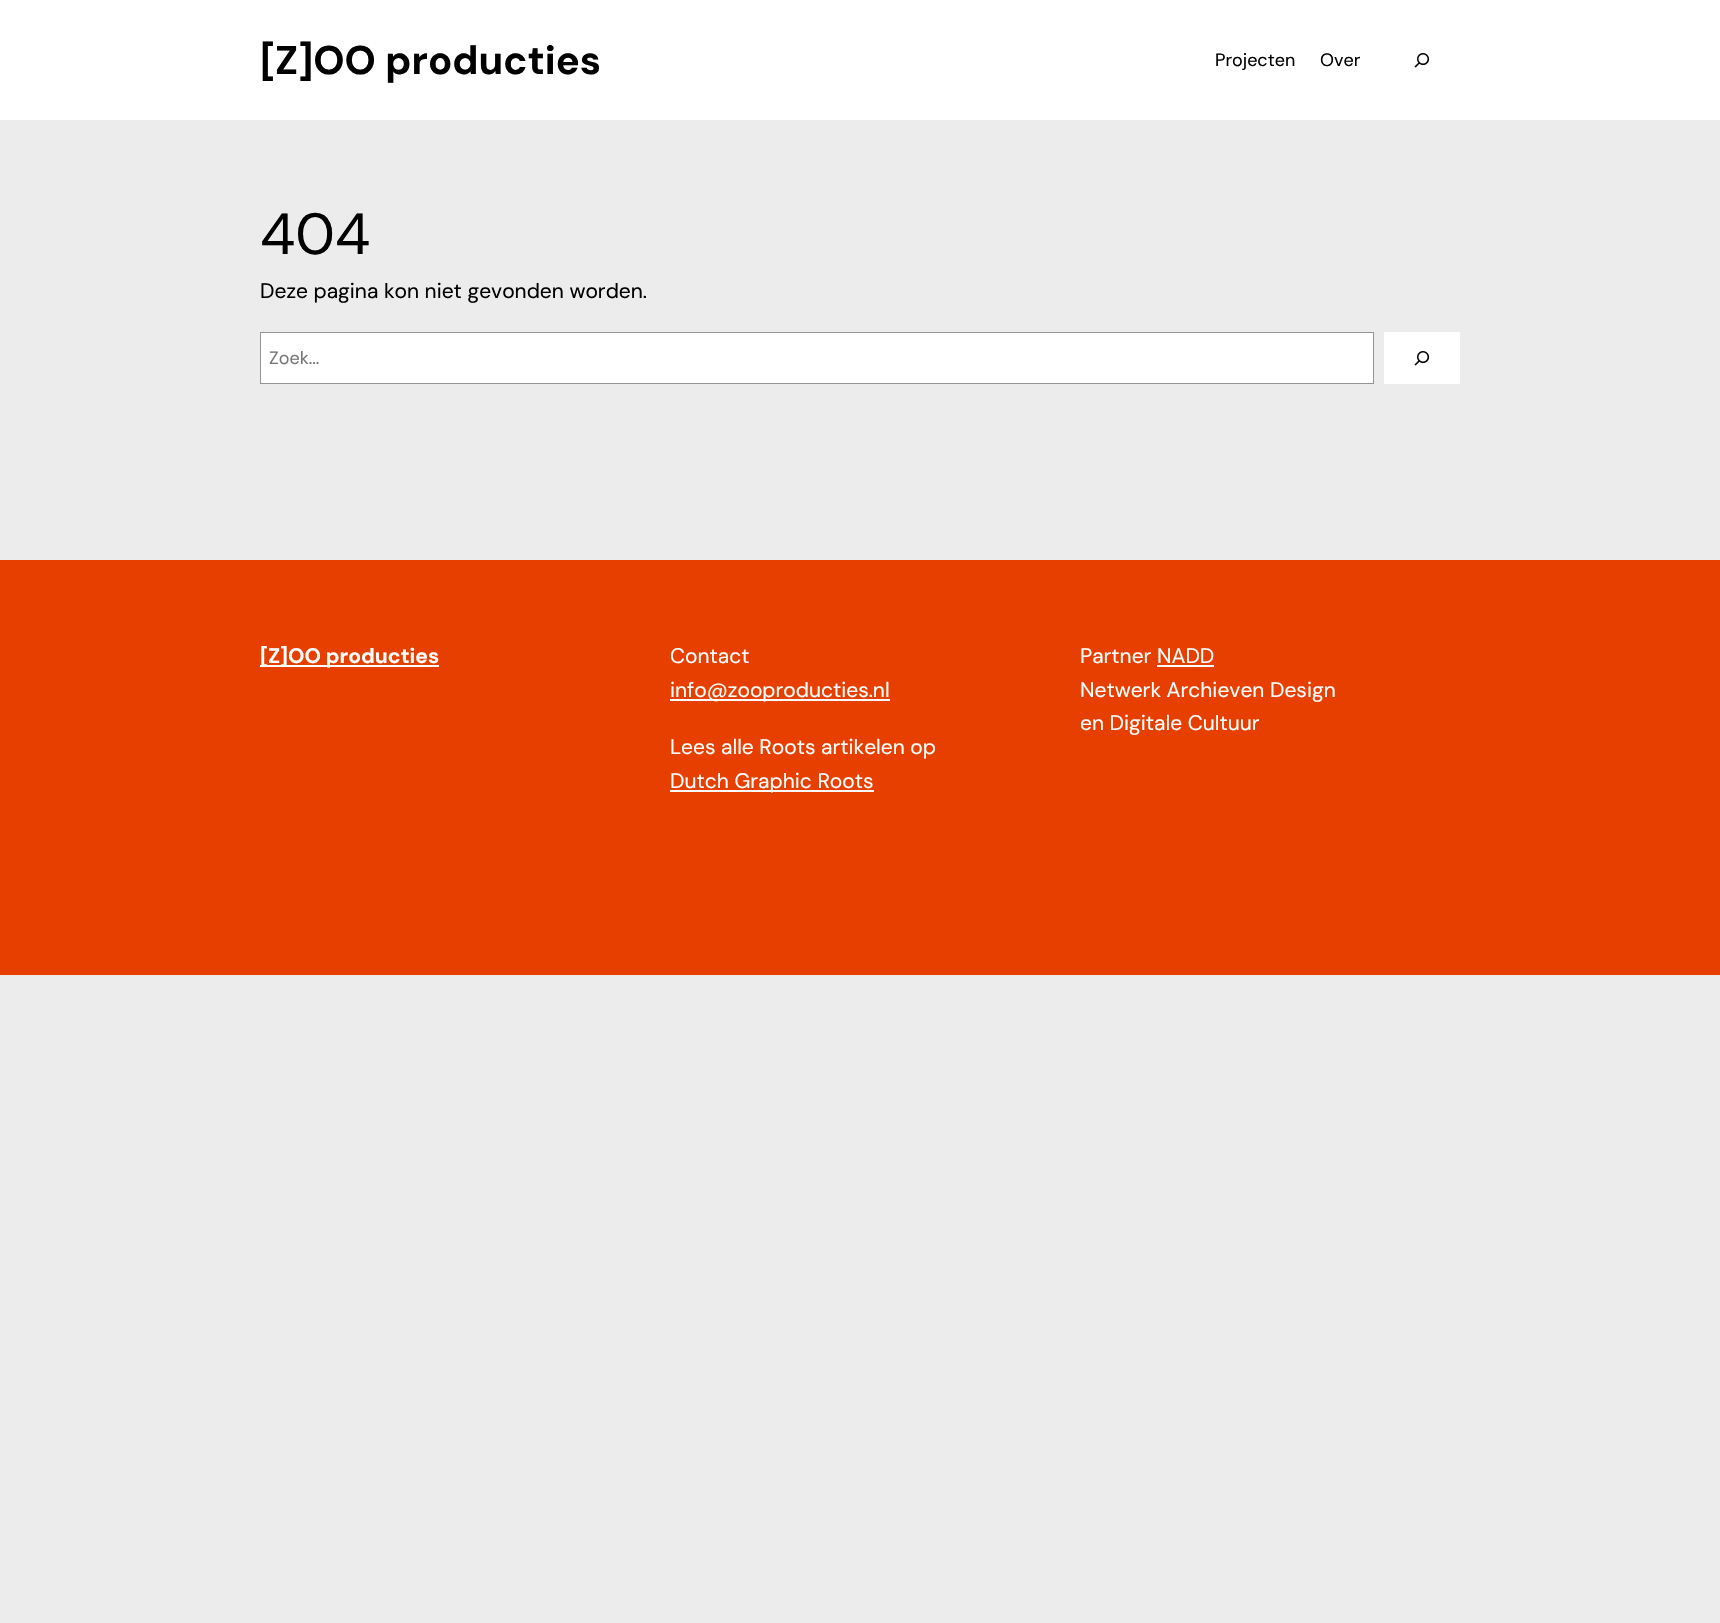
void draw(SkCanvas* canvas) {
  SkPaint paint;
  paint.setAntiAlias(true);
  auto face = [&](const char* family, int weight, float size, bool italic = false) {
    SkFontStyle style(weight, SkFontStyle::kNormal_Width,
      italic ? SkFontStyle::kItalic_Slant : SkFontStyle::kUpright_Slant);
    SkFont result(fontMgr->matchFamilyStyle(family, style), size);
    result.setSubpixel(true);
    return result;
  };
  auto paste = [&](const char* path, float x, float y, float w, float h) {
    auto image = SkImages::DeferredFromEncodedData(SkData::MakeFromFileName(path));
    canvas->drawImageRect(image, SkRect::MakeXYWH(x, y, w, h), SkSamplingOptions());
  };
  canvas->clear(0xffececec);
  paint.setColor(0xffffffff);
  canvas->drawRect(SkRect::MakeXYWH(0, 0, 1720, 120), paint);
  paste("img/1.png", 1414, 53, 16, 15);
  canvas->drawRect(SkRect::MakeXYWH(260.5f, 332.5f, 1113, 51), paint);
  paint.setStroke(true);
  paint.setStrokeWidth(1);
  paint.setColor(0xff949494);
  canvas->drawRect(SkRect::MakeXYWH(260.5f, 332.5f, 1113, 51), paint);
  paint.setStroke(false);
  paint.setColor(0xffffffff);
  canvas->drawRect(SkRect::MakeXYWH(1384, 332, 76, 52), paint);
  paste("img/1.png", 1414, 351, 16, 15);
  {
    const struct { float x, y, w, h; SkColor color; } items[] = {
      {0, 560, 1720, 415, 0xffe63f00},
      {260, 665, 179, 2, 0xffffffff},
      {670, 699, 220, 2, 0xffffffff},
      {670, 790, 204, 2, 0xffffffff},
      {1157, 665, 57, 2, 0xffffffff},
    };
    for (auto [x, y, w, h, color] : items) {
      paint.setColor(color);
      canvas->drawRect(SkRect::MakeXYWH(x, y, w, h), paint);
    }
  }
  auto f0 = face("DM Sans", 700, 40);
  paint.setColor(0xff000000);
  canvas->drawString("[Z]OO producties", 260, 74, f0, paint);
  auto f1 = face("DM Sans", 400, 18);
  canvas->drawString("Projecten", 1215, 66, f1, paint);
  canvas->drawString("Over", 1320, 66, f1, paint);
  auto f2 = face("DM Sans", 400, 58);
  canvas->drawString("404", 260, 254, f2, paint);
  auto f3 = face("DM Sans", 400, 21);
  canvas->drawString("Deze pagina kon niet gevonden worden.", 260, 298, f3, paint);
  paint.setColor(0xff757575);
  canvas->drawString("Zoek...", 269, 364, f1, paint);
  auto f4 = face("DM Sans", 700, 21);
  paint.setColor(0xffffffff);
  canvas->drawString("[Z]OO producties", 260, 663, f4, paint);
  {
    const struct { const char* s; float x, y; } items[] = {
      {"Contact", 670, 663},
      {"info@zooproducties.nl", 670, 697},
      {"Lees alle Roots artikelen op", 670, 754},
      {"Dutch Graphic Roots", 670, 788},
      {"Partner NADD", 1080, 663},
      {"Netwerk Archieven Design", 1080, 697},
      {"en Digitale Cultuur", 1080, 730},
    };
    for (auto [s, x, y] : items) {
      canvas->drawString(s, x, y, f3, paint);
    }
  }
}
